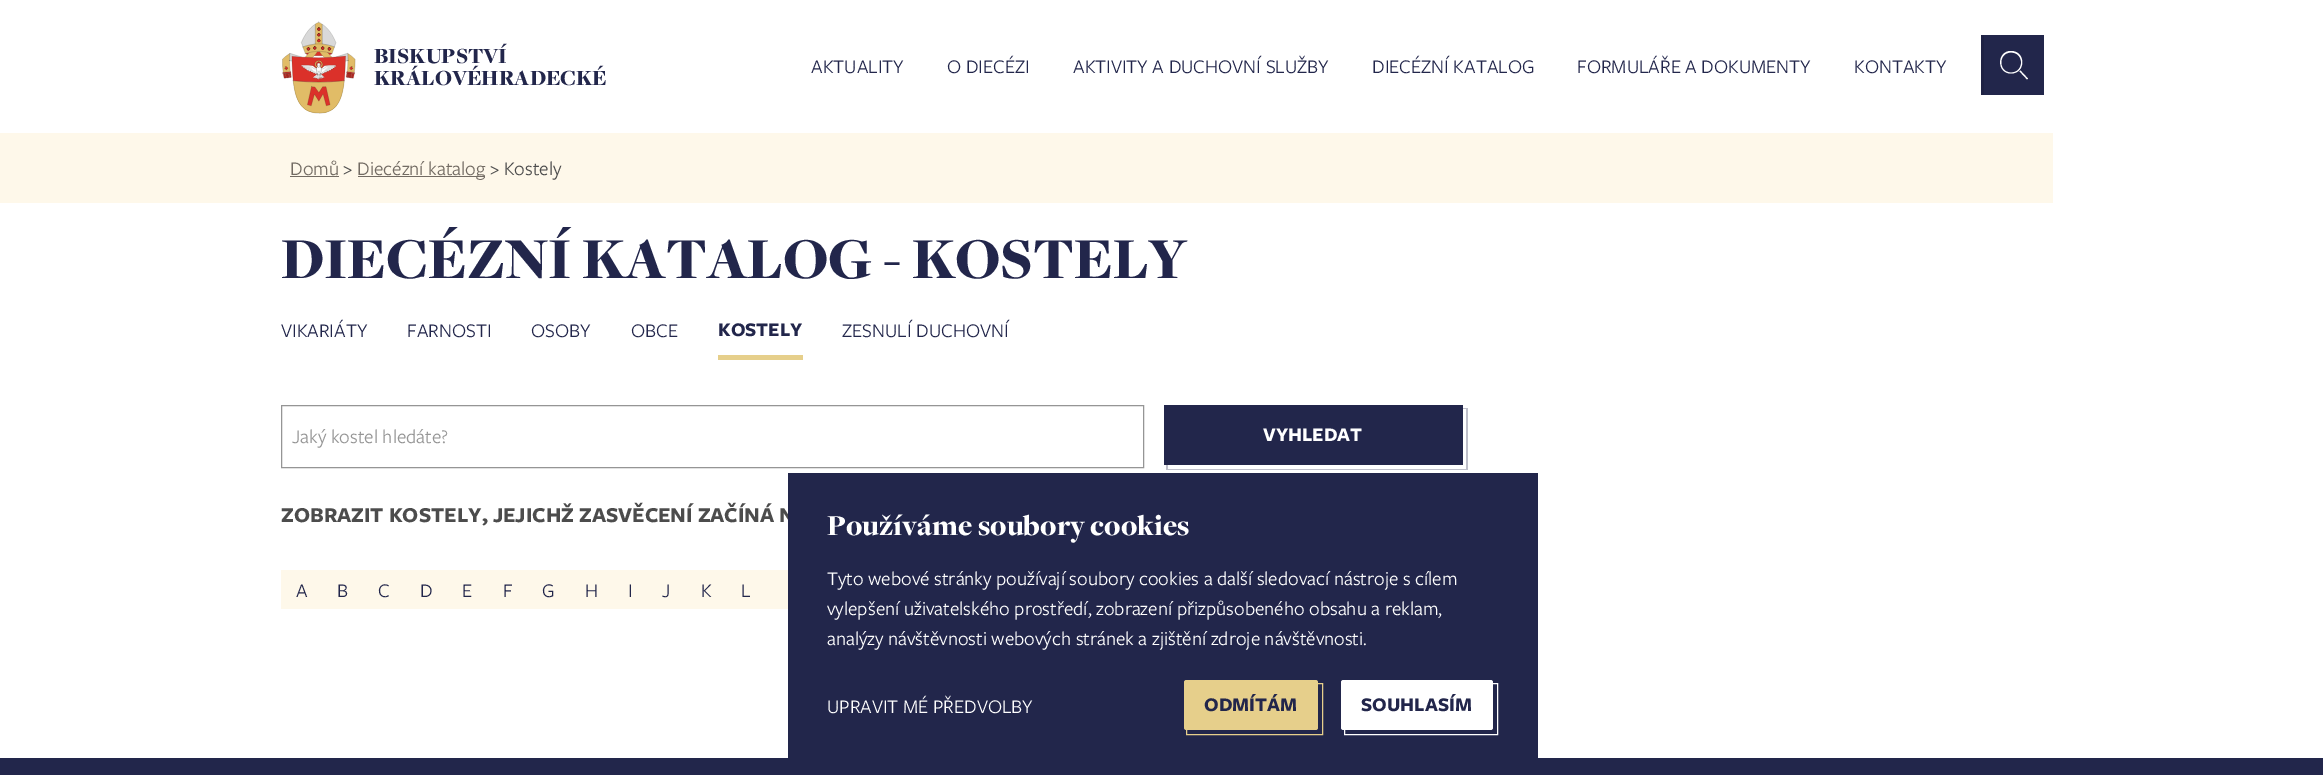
%!PS-Adobe-3.0
%%BoundingBox: 0 0 2323 775
%%LanguageLevel: 3
%%Pages: 1
%%EndComments
%%BeginProlog
/setink { 3 { 255 div 3 1 roll } repeat setrgbcolor } def
/usefont { [ exch dup neg 0 0 3 -1 roll 0 0 ] selectfont } def
/drawtext { setink usefont moveto show } def
/fillbox { setink rectfill } def
/rrect { 5 dict begin { /r /h /w /y /x } { exch def } forall
  x r add y moveto x w add y 2 copy h add r arct x w add y h add x 1 index r arct
  x y h add x y r arct x y 2 copy exch w add exch r arct closepath end } def
/drawimage { 5 dict begin { /h /w /y /x /name } { exch def } forall
  gsave x y translate w h scale
  w h 8 [w 0 0 h 0 0] name (r) file false 3 colorimage grestore end } def
%%EndProlog
%%BeginSetup
<< /PageSize [2323 775] >> setpagedevice
%%EndSetup
%%Page: 1 1
0 775 translate 1 -1 scale
4 setmiterlimit
0 0 2323 775 255 255 255 fillbox
(assets/img1.rgb) 282 21 74 93 drawimage
(BISKUPSTVÍ) 374 63 /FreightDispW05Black-Black 22.5 34 38 75 drawtext
(KRÁLOVÉHRADECKÉ) 374 85 /FreightDispW05Black-Black 22.5 34 38 75 drawtext
(AKTUALITY) 811 73 /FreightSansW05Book-Regular 20 34 38 75 drawtext
(O DIECÉZI) 947 73 /FreightSansW05Book-Regular 20 34 38 75 drawtext
(AKTIVITY A DUCHOVNÍ SLUŽBY) 1073 73 /FreightSansW05Book-Regular 20 34 38 75 drawtext
(DIECÉZNÍ KATALOG) 1372 73 /FreightSansW05Book-Regular 20 34 38 75 drawtext
(FORMULÁŘE A DOKUMENTY) 1577 73 /FreightSansW05Book-Regular 20 34 38 75 drawtext
(KONTAKTY) 1854 73 /FreightSansW05Book-Regular 20 34 38 75 drawtext
1981 35 3 60 31 34 68 fillbox
1984 35 60 60 34 38 75 fillbox
255 255 255 setink
2011 51 moveto 1996.5 51 1996.5 73.5 2011 73.5 curveto 2026 73.5 2026 51 2011 51 curveto 2011 52.5 moveto 2024.5 52.5 2024.5 72.5 2011 72.5 curveto 1998 72.5 1998 52.5 2011 52.5 curveto eofill
1.2 setlinewidth
2020 71 moveto 2027.5 79 lineto stroke
0 133 2053 70 254 248 234 fillbox
(Domů) 290 175 /FreightSansW05Book-Regular 20 114 107 99 drawtext
290 176 49 1 114 107 99 fillbox
(>) 343 175 /FreightSansW05Book-Regular 20 76 76 76 drawtext
358 176 127 1 114 107 99 fillbox
(Diecézní katalog) 357 175 /FreightSansW05Book-Regular 20 114 107 99 drawtext
(> Kostely) 490 175 /FreightSansW05Book-Regular 20 76 76 76 drawtext
(DIECÉZNÍ KATALOG - KOSTELY) 281 278 /FreightDispW05Black-Black 60 34 38 75 drawtext
(VIKARIÁTY) 281 337 /FreightSansW05Book-Regular 20 34 38 75 drawtext
(FARNOSTI) 407 337 /FreightSansW05Book-Regular 20 34 38 75 drawtext
(OSOBY) 531 337 /FreightSansW05Book-Regular 20 34 38 75 drawtext
(OBCE) 631 337 /FreightSansW05Book-Regular 20 34 38 75 drawtext
718 355 85 5 230 207 139 fillbox
(KOSTELY) 718 336 /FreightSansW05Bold-Bold 20 34 38 75 drawtext
(ZESNULÍ DUCHOVNÍ) 842 337 /FreightSansW05Book-Regular 20 34 38 75 drawtext
149 149 149 setink
1 setlinewidth
281.5 405.5 862 62 rectstroke
(Jaký kostel hledáte?) 292 443 /FreightSansW05Book-Regular 20 149 149 149 drawtext
190 191 202 setink
1166 465 moveto 1166 470 lineto 1468 470 lineto 1468 408 lineto 1462 408 lineto 1462 465 lineto closepath fill
255 255 255 setink
1168 465 moveto 1168 469 lineto 1466 469 lineto 1466 409 lineto 1462 409 lineto 1462 465 lineto closepath fill
1164 405 299 60 34 38 75 fillbox
(VYHLEDAT) 1263 441 /FreightSansW05Bold-Bold 20 255 255 255 drawtext
(ZOBRAZIT KOSTELY, JEJICHŽ ZASVĚCENÍ ZAČÍNÁ N) 281 522 /FreightSansW05Bold-Bold 22 76 76 76 drawtext
281 570 507 39 254 248 234 fillbox
(A) 296 597 /FreightSansW05Book-Regular 20 34 38 75 drawtext
(B) 337 597 /FreightSansW05Book-Regular 20 34 38 75 drawtext
(C) 378 597 /FreightSansW05Book-Regular 20 34 38 75 drawtext
(D) 420 597 /FreightSansW05Book-Regular 20 34 38 75 drawtext
(E) 462 597 /FreightSansW05Book-Regular 20 34 38 75 drawtext
(F) 503 597 /FreightSansW05Book-Regular 20 34 38 75 drawtext
(G) 542 597 /FreightSansW05Book-Regular 20 34 38 75 drawtext
(H) 585 597 /FreightSansW05Book-Regular 20 34 38 75 drawtext
(I) 628 597 /FreightSansW05Book-Regular 20 34 38 75 drawtext
(J) 662 597 /FreightSansW05Book-Regular 20 34 38 75 drawtext
(K) 701 597 /FreightSansW05Book-Regular 20 34 38 75 drawtext
(L) 741 597 /FreightSansW05Book-Regular 20 34 38 75 drawtext
0 758 2323 17 34 38 75 fillbox
788 473 750 285 34 38 75 fillbox
(Používáme soubory cookies) 827 535 /FreightDispW05Black-Black 30 255 255 255 drawtext
(Tyto webové stránky používají soubory cookies a další sledovací nástroje s cílem) 827 585 /FreightSansW05Book-Regular 20 255 255 255 drawtext
(vylepšení uživatelského prostředí, zobrazení přizpůsobeného obsahu a reklam,) 827 615 /FreightSansW05Book-Regular 20 255 255 255 drawtext
(analýzy návštěvnosti webových stránek a zjištění zdroje návštěvnosti.) 827 645 /FreightSansW05Book-Regular 20 255 255 255 drawtext
(UPRAVIT MÉ PŘEDVOLBY) 827 713 /FreightSansW05Book-Regular 20 255 255 255 drawtext
230 207 139 setink
1184 680 134 50 2.5 rrect fill
1186.5 683.5 136 51 rectstroke
(ODMÍTÁM) 1204 711 /FreightSansW05Bold-Bold 20 34 38 75 drawtext
255 255 255 setink
1341 680 152 50 2.5 rrect fill
1344.5 683.5 153 51 rectstroke
(SOUHLASÍM) 1361 711 /FreightSansW05Bold-Bold 20 34 38 75 drawtext
showpage
%%EOF
